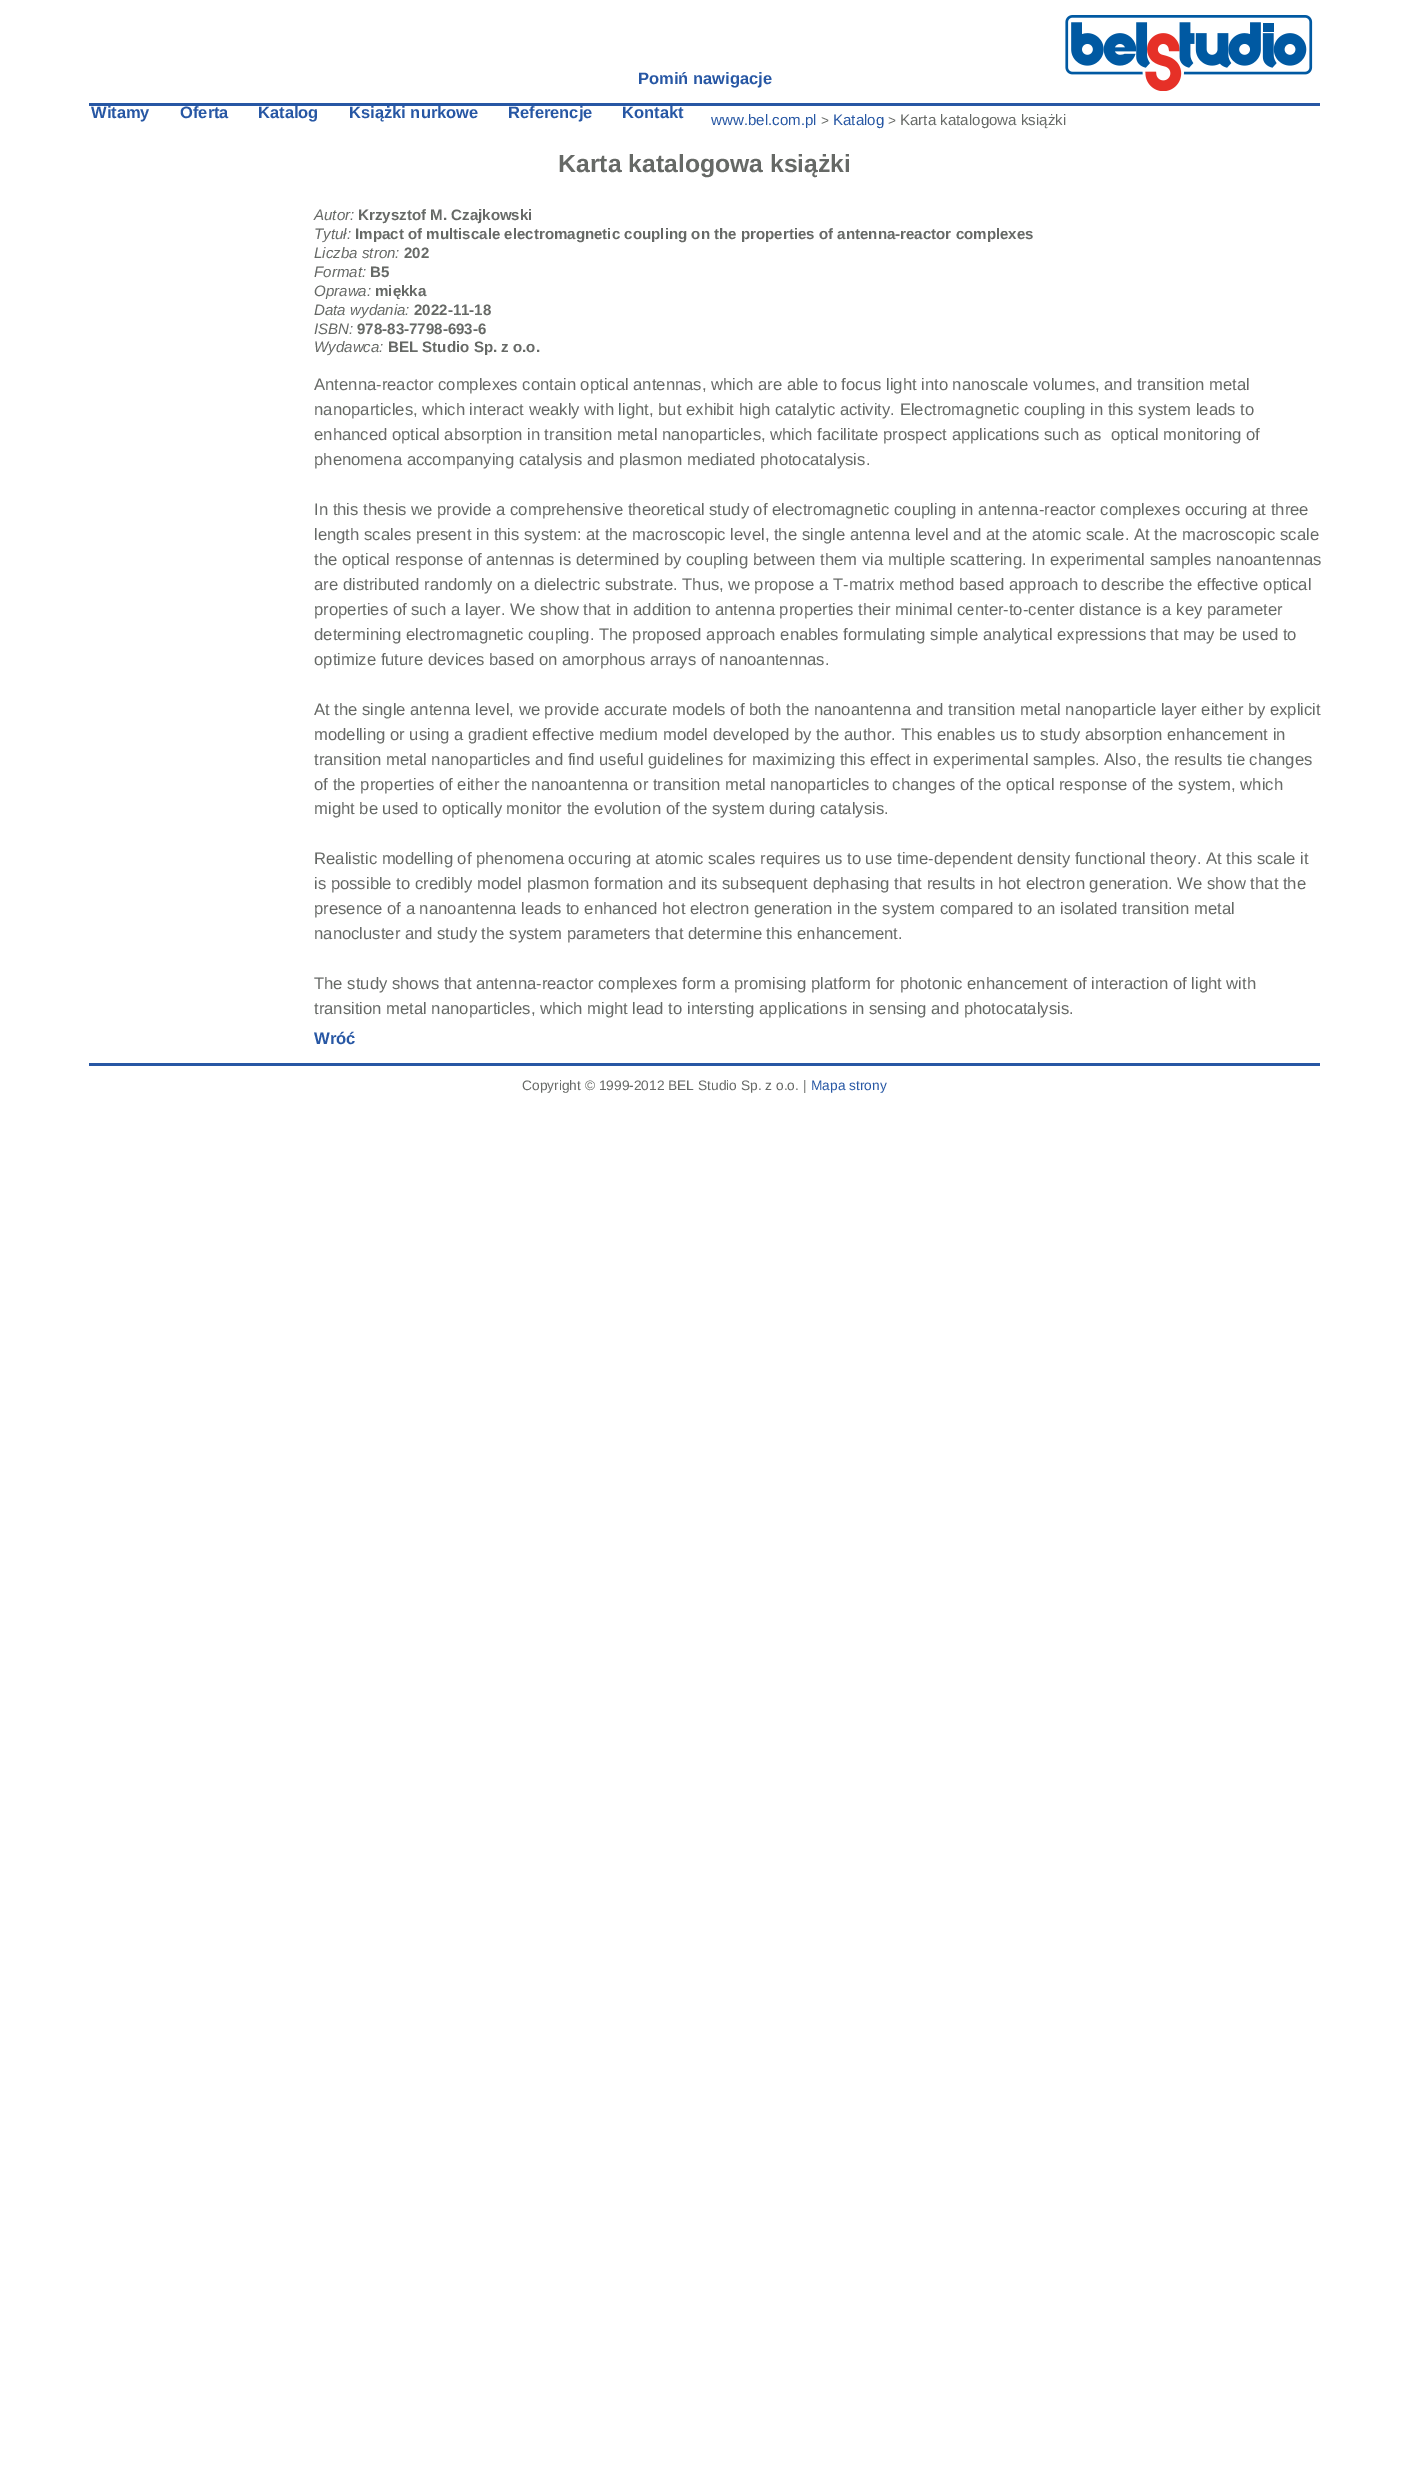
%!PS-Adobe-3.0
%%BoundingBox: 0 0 1408 2471
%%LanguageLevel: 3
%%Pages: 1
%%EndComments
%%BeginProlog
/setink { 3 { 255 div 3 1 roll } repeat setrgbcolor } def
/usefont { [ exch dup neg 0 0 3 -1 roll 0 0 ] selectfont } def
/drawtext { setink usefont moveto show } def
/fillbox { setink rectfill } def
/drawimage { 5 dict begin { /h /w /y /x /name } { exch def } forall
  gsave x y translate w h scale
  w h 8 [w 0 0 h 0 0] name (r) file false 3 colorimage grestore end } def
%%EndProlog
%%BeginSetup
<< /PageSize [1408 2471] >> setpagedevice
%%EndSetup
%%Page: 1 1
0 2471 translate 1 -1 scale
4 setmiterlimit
0 0 1408 2471 255 255 255 fillbox
(assets/img1.rgb) 1065 15 248 76 drawimage
89 103 1231 3 39 87 164 fillbox
(Pomiń nawigacje) 638 84 /LiberationSans-Bold 16.5 39 87 164 drawtext
(Witamy) 91 118 /LiberationSans-Bold 16.5 39 87 164 drawtext
(Oferta) 180 118 /LiberationSans-Bold 16.5 39 87 164 drawtext
(Katalog) 258 118 /LiberationSans-Bold 16.5 39 87 164 drawtext
(Książki nurkowe) 349 118 /LiberationSans-Bold 16.5 39 87 164 drawtext
(Referencje) 508 118 /LiberationSans-Bold 16.5 39 87 164 drawtext
(Kontakt) 622 118 /LiberationSans-Bold 16.5 39 87 164 drawtext
(www.bel.com.pl) 711 125 /LiberationSans-Regular 15.1 39 87 164 drawtext
(>) 821 125 /LiberationSans-Regular 13.75 102 105 102 drawtext
(Katalog) 833 125 /LiberationSans-Regular 15.1 39 87 164 drawtext
(>) 888 125 /LiberationSans-Regular 13.75 102 105 102 drawtext
(Karta katalogowa książki) 900 125 /LiberationSans-Regular 15.1 102 105 102 drawtext
(Karta katalogowa książki) 558 172 /LiberationSans-Bold 24.75 102 105 102 drawtext
(Autor:) 314 220 /LiberationSans-Italic 15.1 102 105 102 drawtext
(Krzysztof M. Czajkowski) 358 220 /LiberationSans-Bold 15.1 102 105 102 drawtext
(Tytuł:) 314 239 /LiberationSans-Italic 15.1 102 105 102 drawtext
(Impact of multiscale electromagnetic coupling on the properties of antenna-reactor complexes) 355 239 /LiberationSans-Bold 15.1 102 105 102 drawtext
(Liczba stron:) 314 258 /LiberationSans-Italic 15.1 102 105 102 drawtext
(202) 404 258 /LiberationSans-Bold 15.1 102 105 102 drawtext
(Format:) 314 277 /LiberationSans-Italic 15.1 102 105 102 drawtext
(B5) 370 277 /LiberationSans-Bold 15.1 102 105 102 drawtext
(Oprawa:) 314 296 /LiberationSans-Italic 15.1 102 105 102 drawtext
(miękka) 375 296 /LiberationSans-Bold 15.1 102 105 102 drawtext
(Data wydania:) 314 315 /LiberationSans-Italic 15.1 102 105 102 drawtext
(2022-11-18) 414 315 /LiberationSans-Bold 15.1 102 105 102 drawtext
(ISBN:) 314 334 /LiberationSans-Italic 15.1 102 105 102 drawtext
(978-83-7798-693-6) 357 334 /LiberationSans-Bold 15.1 102 105 102 drawtext
(Wydawca:) 314 352 /LiberationSans-Italic 15.1 102 105 102 drawtext
(BEL Studio Sp. z o.o.) 388 352 /LiberationSans-Bold 15.1 102 105 102 drawtext
(Antenna-reactor complexes contain optical antennas, which are able to focus light into nanoscale volumes, and transition metal) 314 390 /LiberationSans-Regular 16.65 102 105 102 drawtext
(nanoparticles, which interact weakly with light, but exhibit high catalytic activity. Electromagnetic coupling in this system leads to) 314 415 /LiberationSans-Regular 16.65 102 105 102 drawtext
(enhanced optical absorption in transition metal nanoparticles, which facilitate prospect applications such as  optical monitoring of) 314 440 /LiberationSans-Regular 16.65 102 105 102 drawtext
(phenomena accompanying catalysis and plasmon mediated photocatalysis.) 314 465 /LiberationSans-Regular 16.65 102 105 102 drawtext
(In this thesis we provide a comprehensive theoretical study of electromagnetic coupling in antenna-reactor complexes occuring at three) 314 515 /LiberationSans-Regular 16.65 102 105 102 drawtext
(length scales present in this system: at the macroscopic level, the single antenna level and at the atomic scale. At the macroscopic scale) 314 540 /LiberationSans-Regular 16.65 102 105 102 drawtext
(the optical response of antennas is determined by coupling between them via multiple scattering. In experimental samples nanoantennas) 314 565 /LiberationSans-Regular 16.65 102 105 102 drawtext
(are distributed randomly on a dielectric substrate. Thus, we propose a T-matrix method based approach to describe the effective optical) 314 590 /LiberationSans-Regular 16.65 102 105 102 drawtext
(properties of such a layer. We show that in addition to antenna properties their minimal center-to-center distance is a key parameter) 314 615 /LiberationSans-Regular 16.65 102 105 102 drawtext
(determining electromagnetic coupling. The proposed approach enables formulating simple analytical expressions that may be used to) 314 640 /LiberationSans-Regular 16.65 102 105 102 drawtext
(optimize future devices based on amorphous arrays of nanoantennas.) 314 665 /LiberationSans-Regular 16.65 102 105 102 drawtext
(At the single antenna level, we provide accurate models of both the nanoantenna and transition metal nanoparticle layer either by explicit) 314 715 /LiberationSans-Regular 16.65 102 105 102 drawtext
(modelling or using a gradient effective medium model developed by the author. This enables us to study absorption enhancement in) 314 740 /LiberationSans-Regular 16.65 102 105 102 drawtext
(transition metal nanoparticles and find useful guidelines for maximizing this effect in experimental samples. Also, the results tie changes) 314 765 /LiberationSans-Regular 16.65 102 105 102 drawtext
(of the properties of either the nanoantenna or transition metal nanoparticles to changes of the optical response of the system, which) 314 790 /LiberationSans-Regular 16.65 102 105 102 drawtext
(might be used to optically monitor the evolution of the system during catalysis.) 314 814 /LiberationSans-Regular 16.65 102 105 102 drawtext
(Realistic modelling of phenomena occuring at atomic scales requires us to use time-dependent density functional theory. At this scale it) 314 864 /LiberationSans-Regular 16.65 102 105 102 drawtext
(is possible to credibly model plasmon formation and its subsequent dephasing that results in hot electron generation. We show that the) 314 889 /LiberationSans-Regular 16.65 102 105 102 drawtext
(presence of a nanoantenna leads to enhanced hot electron generation in the system compared to an isolated transition metal) 314 914 /LiberationSans-Regular 16.65 102 105 102 drawtext
(nanocluster and study the system parameters that determine this enhancement.) 314 939 /LiberationSans-Regular 16.65 102 105 102 drawtext
(The study shows that antenna-reactor complexes form a promising platform for photonic enhancement of interaction of light with) 314 989 /LiberationSans-Regular 16.65 102 105 102 drawtext
(transition metal nanoparticles, which might lead to intersting applications in sensing and photocatalysis.) 314 1014 /LiberationSans-Regular 16.65 102 105 102 drawtext
(Wróć) 314 1044 /LiberationSans-Bold 16.65 39 87 164 drawtext
89 1063 1231 3 39 87 164 fillbox
(Copyright © 1999-2012 BEL Studio Sp. z o.o. |) 522 1090 /LiberationSans-Regular 13.75 102 105 102 drawtext
(Mapa strony) 811 1090 /LiberationSans-Regular 13.75 39 87 164 drawtext
showpage
%%EOF
